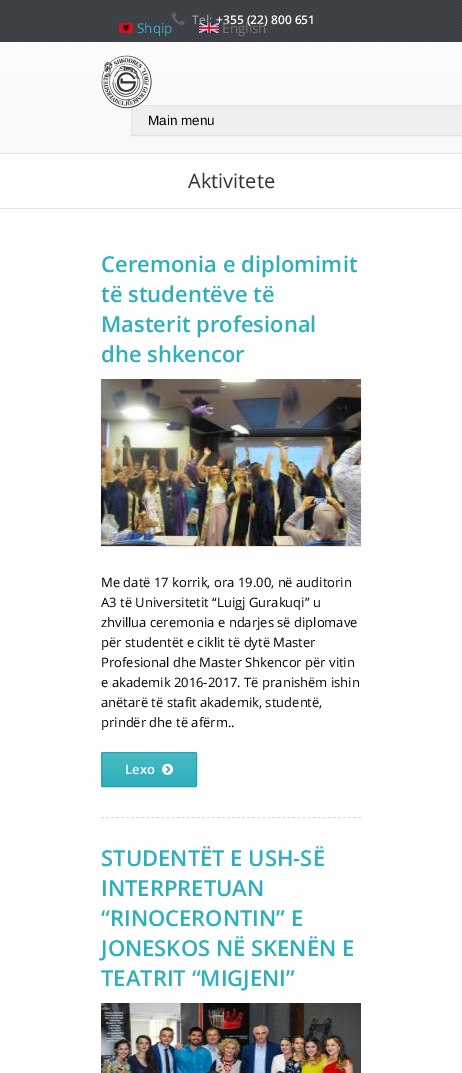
%!PS-Adobe-3.0
%%BoundingBox: 0 0 462 1073
%%LanguageLevel: 3
%%Pages: 1
%%EndComments
%%BeginProlog
/setink { 3 { 255 div 3 1 roll } repeat setrgbcolor } def
/usefont { [ exch dup neg 0 0 3 -1 roll 0 0 ] selectfont } def
/drawtext { setink usefont moveto show } def
/fillbox { setink rectfill } def
/setalpha { dup .setfillconstantalpha .setstrokeconstantalpha } def
/rrect { 5 dict begin { /r /h /w /y /x } { exch def } forall
  x r add y moveto x w add y 2 copy h add r arct x w add y h add x 1 index r arct
  x y h add x y r arct x y 2 copy exch w add exch r arct closepath end } def
/softshadow { 12 dict begin { /a /b /q /h /w /y /x } { exch def } forall gsave /was 0 def
  9 -2 -9 { dup b mul 4 div /e exch def 1 sub .425 mul 2.718 exch exp 1 add a .99 .min exch div /now exch def
    1 1 now sub 1 was sub div sub setalpha /was now def
    w h .min e 2 mul add 0 gt { x e sub y e sub w e 2 mul add h e 2 mul add
      q e add b .6 mul add w h .min 2 div e add .min 0 .max rrect fill } if } for grestore end } def
/drawimage { 5 dict begin { /h /w /y /x /name } { exch def } forall
  gsave x y translate w h scale
  w h 8 [w 0 0 h 0 0] name (r) file false 3 colorimage grestore end } def
%%EndProlog
%%BeginSetup
<< /PageSize [462 1073] /PageUsesTransparency true >> setpagedevice
%%EndSetup
%%Page: 1 1
0 .pushpdf14devicefilter
0 1073 translate 1 -1 scale
4 setmiterlimit
0 0 462 1073 255 255 255 fillbox
(assets/img1.rgb) 0 0 462 42 drawimage
(assets/img2.rgb) 172 12 13 13 drawimage
(Tel:) 192 24 /OpenSans-SemiBold 12 155 155 155 drawtext
(+355 \(22\) 800 651) 216 24 /OpenSans-SemiBold 12 255 255 255 drawtext
(assets/img3.rgb) 119 23 14 10 drawimage
(Shqip) 137 33 /OpenSans-Regular 13.5 60 170 200 drawtext
(assets/img4.rgb) 199 23 20 10 drawimage
(English) 222 33 /OpenSans-Regular 13.5 119 119 119 drawtext
gsave 0 42 moveto 462 42 lineto 462 153 lineto 0 153 lineto closepath clip newpath
<< /ShadingType 2 /ColorSpace /DeviceRGB /Coords [231 42 231 153] /Extend [true true] /Function << /FunctionType 3 /Domain [0 1] /Functions [<< /FunctionType 2 /Domain [0 1] /C0 [0.988 0.988 0.988] /C1 [0.988 0.988 0.988] /N 1 >> << /FunctionType 2 /Domain [0 1] /C0 [0.988 0.988 0.988] /C1 [0.976 0.976 0.976] /N 1 >>] /Bounds [0.02] /Encode [0 1 0 1] >> >> shfill grestore
239 239 239 setink
131.5 105.5 moveto 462.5 105.5 lineto 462.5 135.5 lineto 131.5 135.5 lineto closepath gsave fill grestore
226 226 226 setink
stroke
(assets/img5.rgb) 101 55 51 54 drawimage
(Main menu) 148 125 /LiberationSans-Regular 13.5 0 0 0 drawtext
0 153 462 1 228 228 228 fillbox
0 208 462 1 228 228 228 fillbox
(Aktivitete) 188 188 /OpenSans-Regular 20 49 53 56 drawtext
222 225 226 setink
[3 2.04] 0 setdash
101 817.5 moveto 361 817.5 lineto stroke
(Ceremonia e diplomimit) 101 272 /OpenSans-SemiBold 22 46 175 187 drawtext
(të studentëve të) 101 302 /OpenSans-SemiBold 22 46 175 187 drawtext
(Masterit profesional) 101 332 /OpenSans-SemiBold 22 46 175 187 drawtext
(dhe shkencor) 101 362 /OpenSans-SemiBold 22 46 175 187 drawtext
0 0 0 setink
101 380 260 167 0 0.5 0.1 softshadow
(assets/img6.rgb) 101 379 260 167 drawimage
(Me datë 17 korrik, ora 19.00, në auditorin) 101 587 /OpenSans-Regular 13 0 0 0 drawtext
(A3 të Universitetit “Luigj Gurakuqi” u) 101 607 /OpenSans-Regular 13 0 0 0 drawtext
(zhvillua ceremonia e ndarjes së diplomave) 101 627 /OpenSans-Regular 13 0 0 0 drawtext
(për studentët e ciklit të dytë Master) 101 647 /OpenSans-Regular 13 0 0 0 drawtext
(Profesional dhe Master Shkencor për vitin) 101 667 /OpenSans-Regular 13 0 0 0 drawtext
(e akademik 2016-2017. Të pranishëm ishin) 101 687 /OpenSans-Regular 13 0 0 0 drawtext
(anëtarë të stafit akademik, studentë,) 101 707 /OpenSans-Regular 13 0 0 0 drawtext
(prindër dhe të afërm..) 101 727 /OpenSans-Regular 13 0 0 0 drawtext
101 753 96 35 2 1 0.05 softshadow
46 175 187 setink
101 752 96 35 2 rrect fill
(assets/img7.rgb) 101 753 96 25 drawimage
38 164 177 setink
[] 0 setdash
101.5 752.5 95 34 1.5 rrect stroke
(Lexo) 125 774 /OpenSans-SemiBold 13 255 255 255 drawtext
(assets/img8.rgb) 162 763 12 12 drawimage
(STUDENTËT E USH-SË) 101 866 /OpenSans-SemiBold 22 46 175 187 drawtext
(INTERPRETUAN) 101 896 /OpenSans-SemiBold 22 46 175 187 drawtext
(“RINOCERONTIN” E) 101 926 /OpenSans-SemiBold 22 46 175 187 drawtext
(JONESKOS NË SKENËN E) 101 956 /OpenSans-SemiBold 22 46 175 187 drawtext
(TEATRIT “MIGJENI”) 101 986 /OpenSans-SemiBold 22 46 175 187 drawtext
(assets/img9.rgb) 101 1003 260 70 drawimage
.poppdf14devicefilter showpage
%%EOF
